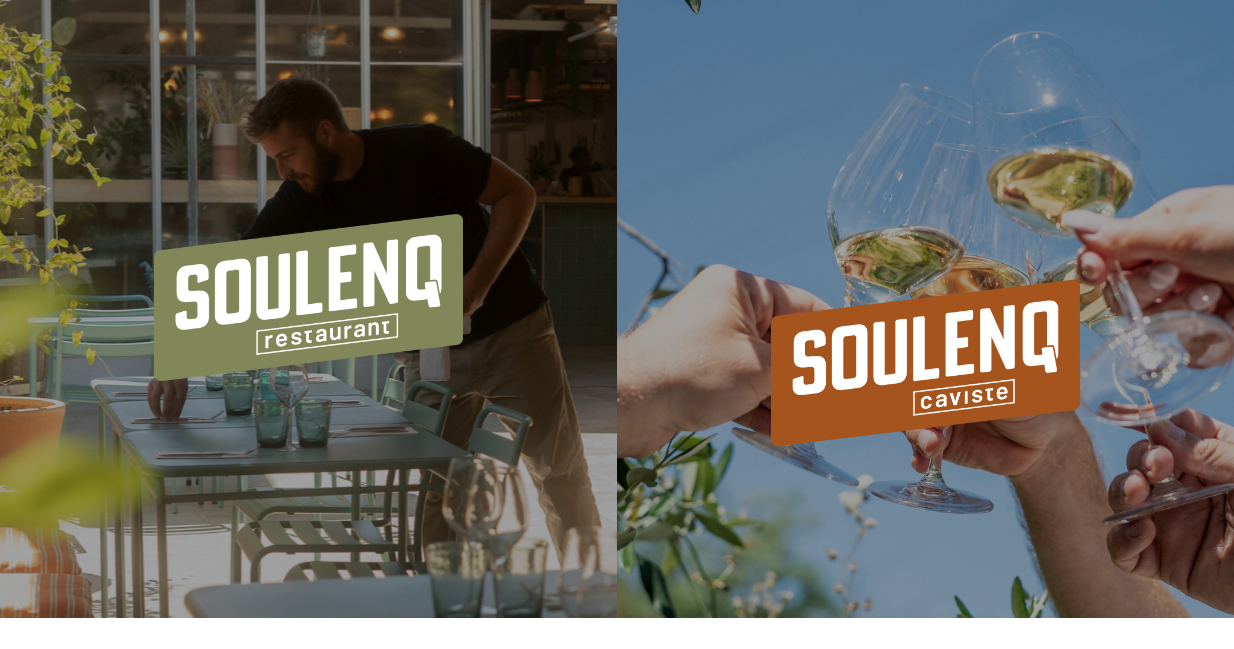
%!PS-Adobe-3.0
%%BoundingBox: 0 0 1234 649
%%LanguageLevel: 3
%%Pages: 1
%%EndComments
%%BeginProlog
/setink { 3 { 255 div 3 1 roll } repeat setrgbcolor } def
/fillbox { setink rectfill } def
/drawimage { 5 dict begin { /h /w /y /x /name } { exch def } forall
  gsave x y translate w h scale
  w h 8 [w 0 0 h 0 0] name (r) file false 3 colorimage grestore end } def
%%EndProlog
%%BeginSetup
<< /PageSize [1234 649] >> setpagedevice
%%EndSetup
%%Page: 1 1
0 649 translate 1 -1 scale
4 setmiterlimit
0 0 1234 649 255 255 255 fillbox
(assets/img1.rgb) 0 0 617 618 drawimage
(assets/img2.rgb) 154 214 309 167 drawimage
(assets/img3.rgb) 617 0 617 618 drawimage
(assets/img4.rgb) 771 279 309 168 drawimage
showpage
%%EOF
